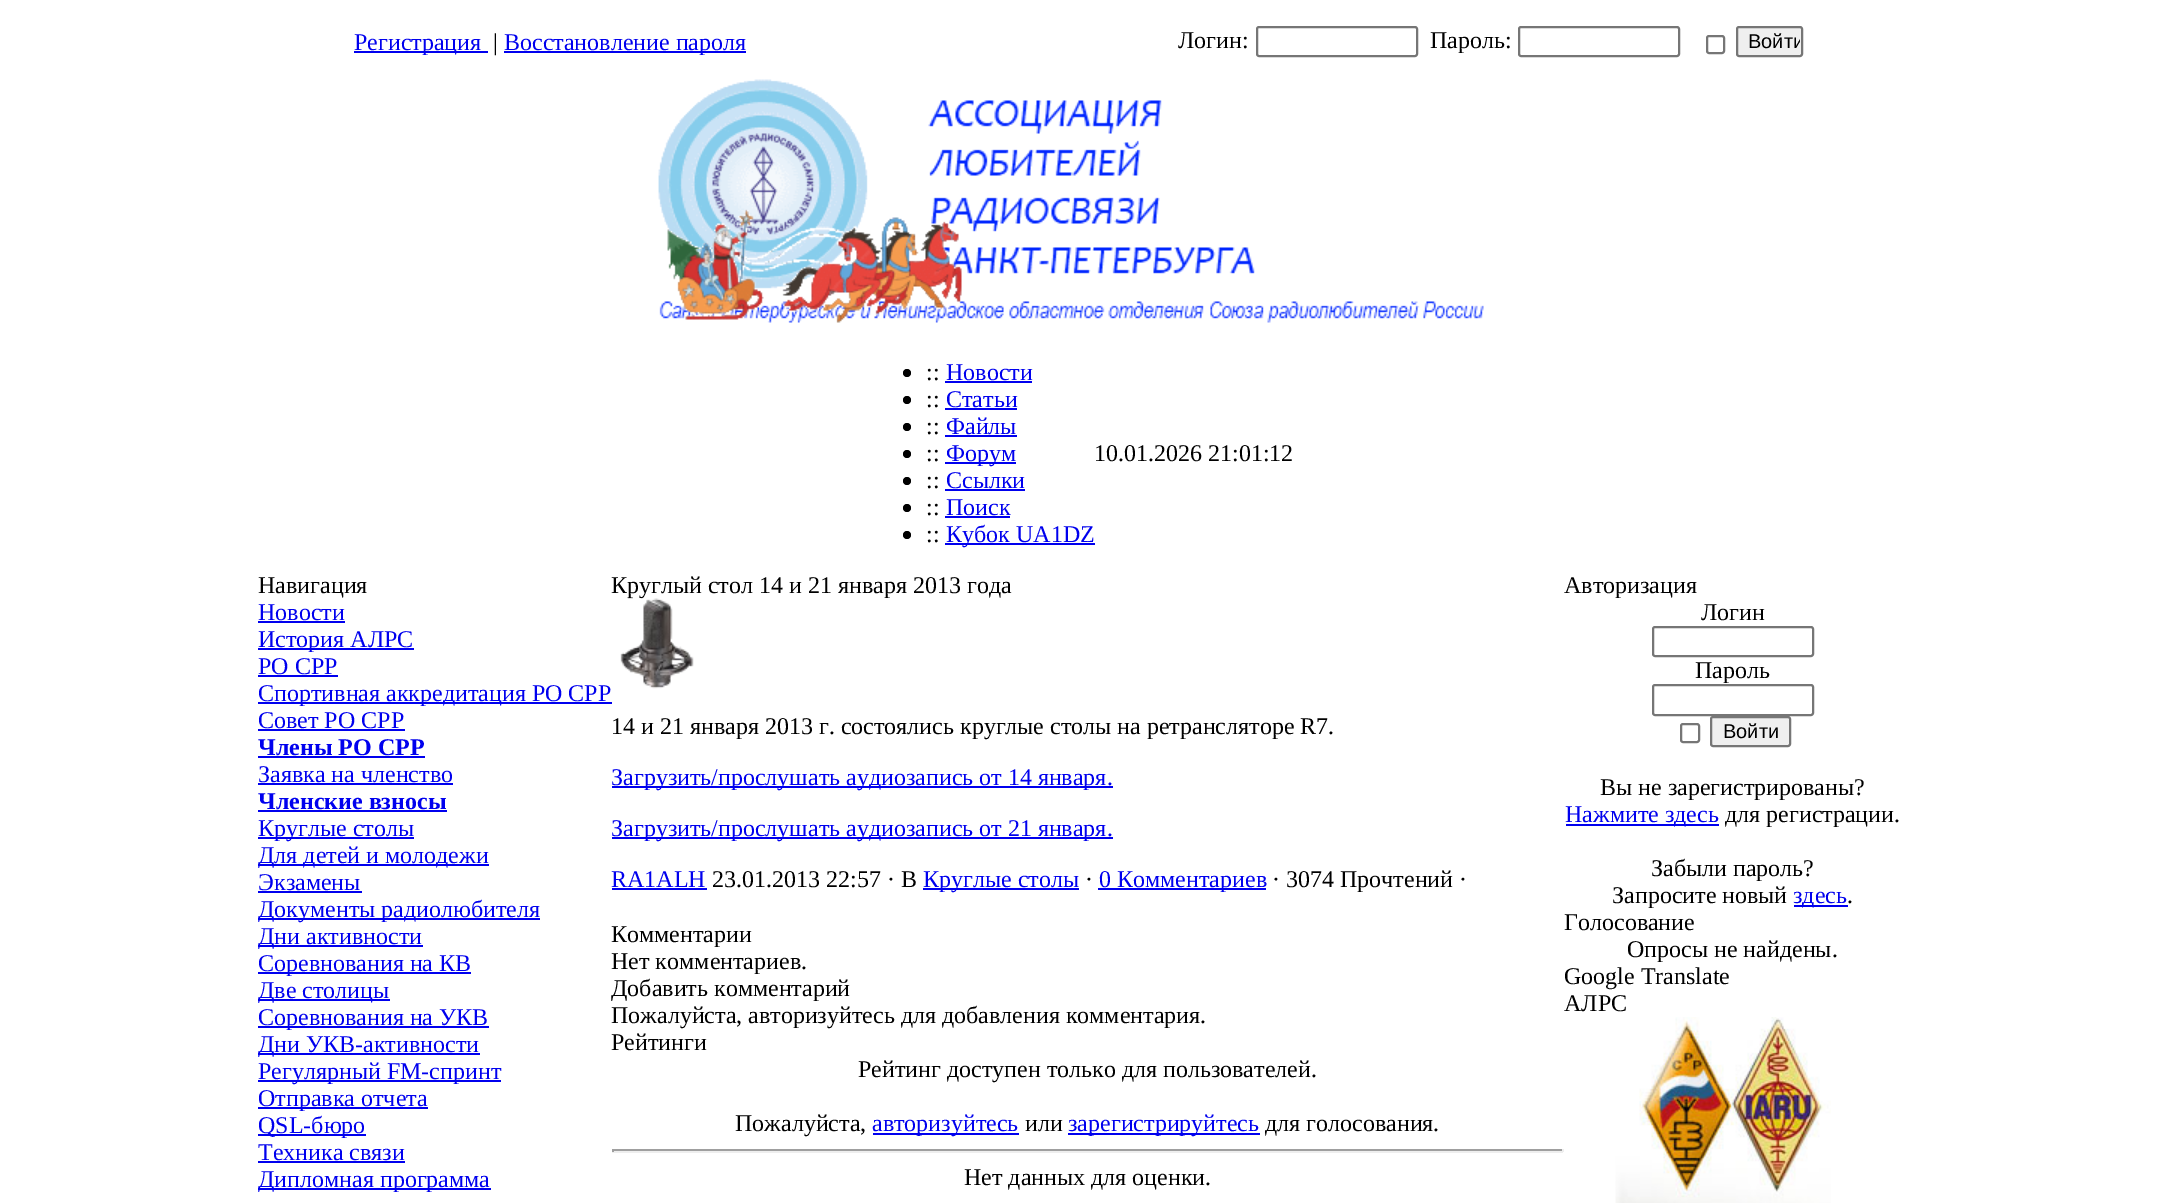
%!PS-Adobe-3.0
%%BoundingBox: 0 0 2160 1203
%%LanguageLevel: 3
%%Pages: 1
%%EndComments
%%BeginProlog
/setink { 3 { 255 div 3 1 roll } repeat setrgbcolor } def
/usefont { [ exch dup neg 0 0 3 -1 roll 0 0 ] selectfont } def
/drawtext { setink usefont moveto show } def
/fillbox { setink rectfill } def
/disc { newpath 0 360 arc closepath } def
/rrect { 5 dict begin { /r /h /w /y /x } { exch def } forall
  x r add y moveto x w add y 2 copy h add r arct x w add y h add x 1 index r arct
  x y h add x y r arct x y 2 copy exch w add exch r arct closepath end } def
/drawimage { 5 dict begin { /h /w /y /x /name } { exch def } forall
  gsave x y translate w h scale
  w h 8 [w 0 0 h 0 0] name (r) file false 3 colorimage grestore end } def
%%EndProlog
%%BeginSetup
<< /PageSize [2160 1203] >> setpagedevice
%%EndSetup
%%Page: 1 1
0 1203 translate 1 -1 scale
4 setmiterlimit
0 0 2160 1203 255 255 255 fillbox
354 51 134 2 0 0 238 fillbox
(Регистрация) 354 50 /LiberationSerif-Regular 24 0 0 238 drawtext
(|) 493 50 /LiberationSerif-Regular 24 0 0 0 drawtext
504 51 242 2 0 0 238 fillbox
(Восстановление пароля) 504 50 /LiberationSerif-Regular 24 0 0 238 drawtext
(Логин:) 1178 48 /LiberationSerif-Regular 24 0 0 0 drawtext
118 118 118 setink
2 setlinewidth
1257 27 160 29 2 rrect stroke
(Пароль:) 1430 48 /LiberationSerif-Regular 24 0 0 0 drawtext
118 118 118 setink
1519 27 160 29 2 rrect stroke
1707 36 17 17 2 rrect stroke
239 239 239 setink
1737 27 65 29 2 rrect gsave fill grestore
118 118 118 setink
stroke
gsave
1739 29 61 25 rectclip
(Войти) 1748 48 /LiberationSans-Regular 20 0 0 0 drawtext
grestore
(assets/img1.rgb) 658 79 826 244 drawimage
0 0 0 setink
907 373 4 disc fill
(::) 926 380 /LiberationSerif-Regular 24 0 0 0 drawtext
(Новости) 946 380 /LiberationSerif-Regular 24 0 0 238 drawtext
945 381 87 2 0 0 238 fillbox
0 0 0 setink
907 400 4 disc fill
(::) 926 407 /LiberationSerif-Regular 24 0 0 0 drawtext
(Статьи) 946 407 /LiberationSerif-Regular 24 0 0 238 drawtext
945 408 72 2 0 0 238 fillbox
0 0 0 setink
907 427 4 disc fill
(::) 926 434 /LiberationSerif-Regular 24 0 0 0 drawtext
(Файлы) 946 434 /LiberationSerif-Regular 24 0 0 238 drawtext
945 435 72 2 0 0 238 fillbox
0 0 0 setink
907 454 4 disc fill
(::) 926 461 /LiberationSerif-Regular 24 0 0 0 drawtext
945 462 71 2 0 0 238 fillbox
(Форум) 946 461 /LiberationSerif-Regular 24 0 0 238 drawtext
0 0 0 setink
907 481 4 disc fill
(::) 926 488 /LiberationSerif-Regular 24 0 0 0 drawtext
(Ссылки) 946 488 /LiberationSerif-Regular 24 0 0 238 drawtext
945 489 80 2 0 0 238 fillbox
0 0 0 setink
907 508 4 disc fill
(::) 926 515 /LiberationSerif-Regular 24 0 0 0 drawtext
(Поиск) 946 515 /LiberationSerif-Regular 24 0 0 238 drawtext
945 516 65 2 0 0 238 fillbox
0 0 0 setink
907 535 4 disc fill
(::) 926 542 /LiberationSerif-Regular 24 0 0 0 drawtext
945 543 150 2 0 0 238 fillbox
(Кубок UA1DZ) 946 542 /LiberationSerif-Regular 24 0 0 238 drawtext
(10.01.2026 21:01:12) 1094 461 /LiberationSerif-Regular 24 0 0 0 drawtext
(Навигация) 258 593 /LiberationSerif-Regular 24 0 0 0 drawtext
(Новости) 258 620 /LiberationSerif-Regular 24 0 0 238 drawtext
258 621 87 2 0 0 238 fillbox
258 648 156 2 0 0 238 fillbox
(История АЛРС) 258 647 /LiberationSerif-Regular 24 0 0 238 drawtext
(РО СРР) 258 674 /LiberationSerif-Regular 24 0 0 238 drawtext
258 675 80 2 0 0 238 fillbox
258 702 354 2 0 0 238 fillbox
(Спортивная аккредитация РО СРР) 258 701 /LiberationSerif-Regular 24 0 0 238 drawtext
(Совет РО СРР) 258 728 /LiberationSerif-Regular 24 0 0 238 drawtext
258 729 147 2 0 0 238 fillbox
(Члены РО СРР) 258 755 /LiberationSerif-Bold 24 0 0 238 drawtext
258 756 167 2 0 0 238 fillbox
(Заявка на членство) 258 782 /LiberationSerif-Regular 24 0 0 238 drawtext
258 783 195 2 0 0 238 fillbox
(Членские взносы) 258 809 /LiberationSerif-Bold 24 0 0 238 drawtext
258 810 189 2 0 0 238 fillbox
258 837 156 2 0 0 238 fillbox
(Круглые столы) 258 836 /LiberationSerif-Regular 24 0 0 238 drawtext
258 864 231 2 0 0 238 fillbox
(Для детей и молодежи) 258 863 /LiberationSerif-Regular 24 0 0 238 drawtext
(Экзамены) 258 890 /LiberationSerif-Regular 24 0 0 238 drawtext
258 891 104 2 0 0 238 fillbox
258 918 282 2 0 0 238 fillbox
(Документы радиолюбителя) 258 917 /LiberationSerif-Regular 24 0 0 238 drawtext
258 945 165 2 0 0 238 fillbox
(Дни активности) 258 944 /LiberationSerif-Regular 24 0 0 238 drawtext
258 972 213 2 0 0 238 fillbox
(Соревнования на КВ) 258 971 /LiberationSerif-Regular 24 0 0 238 drawtext
258 999 132 2 0 0 238 fillbox
(Две столицы) 258 998 /LiberationSerif-Regular 24 0 0 238 drawtext
258 1026 231 2 0 0 238 fillbox
(Соревнования на УКВ) 258 1025 /LiberationSerif-Regular 24 0 0 238 drawtext
258 1053 222 2 0 0 238 fillbox
(Дни УКВ-активности) 258 1052 /LiberationSerif-Regular 24 0 0 238 drawtext
258 1080 243 2 0 0 238 fillbox
(Регулярный FM-спринт) 258 1079 /LiberationSerif-Regular 24 0 0 238 drawtext
258 1107 170 2 0 0 238 fillbox
(Отправка отчета) 258 1106 /LiberationSerif-Regular 24 0 0 238 drawtext
258 1134 108 2 0 0 238 fillbox
(QSL-бюро) 258 1133 /LiberationSerif-Regular 24 0 0 238 drawtext
(Техника связи) 258 1160 /LiberationSerif-Regular 24 0 0 238 drawtext
258 1161 147 2 0 0 238 fillbox
258 1188 233 2 0 0 238 fillbox
(Дипломная программа) 258 1187 /LiberationSerif-Regular 24 0 0 238 drawtext
(Круглый стол 14 и 21 января 2013 года) 611 593 /LiberationSerif-Regular 24 0 0 0 drawtext
(assets/img2.rgb) 620 598 74 91 drawimage
(14 и 21 января 2013 г. состоялись круглые столы на ретрансляторе R7.) 611 734 /LiberationSerif-Regular 24 0 0 0 drawtext
612 786 501 2 0 0 238 fillbox
(Загрузить/прослушать аудиозапись от 14 января.) 611 785 /LiberationSerif-Regular 24 0 0 238 drawtext
612 837 501 2 0 0 238 fillbox
(Загрузить/прослушать аудиозапись от 21 января.) 611 836 /LiberationSerif-Regular 24 0 0 238 drawtext
(RA1ALH) 611 887 /LiberationSerif-Regular 24 0 0 238 drawtext
612 888 95 2 0 0 238 fillbox
(23.01.2013 22:57 · В) 712 887 /LiberationSerif-Regular 24 0 0 0 drawtext
923 888 156 2 0 0 238 fillbox
(Круглые столы) 923 887 /LiberationSerif-Regular 24 0 0 238 drawtext
(·) 1085 887 /LiberationSerif-Regular 24 0 0 0 drawtext
1098 888 168 2 0 0 238 fillbox
(0 Комментариев) 1099 887 /LiberationSerif-Regular 24 0 0 238 drawtext
(· 3074 Прочтений ·) 1272 887 /LiberationSerif-Regular 24 0 0 0 drawtext
(Комментарии) 611 942 /LiberationSerif-Regular 24 0 0 0 drawtext
(Нет комментариев.) 611 969 /LiberationSerif-Regular 24 0 0 0 drawtext
(Добавить комментарий) 611 996 /LiberationSerif-Regular 24 0 0 0 drawtext
(Пожалуйста, авторизуйтесь для добавления комментария.) 611 1023 /LiberationSerif-Regular 24 0 0 0 drawtext
(Рейтинги) 611 1050 /LiberationSerif-Regular 24 0 0 0 drawtext
(Рейтинг доступен только для пользователей.) 858 1077 /LiberationSerif-Regular 24 0 0 0 drawtext
(Пожалуйста,) 735 1131 /LiberationSerif-Regular 24 0 0 0 drawtext
873 1133 146 2 0 0 238 fillbox
(авторизуйтесь) 872 1131 /LiberationSerif-Regular 24 0 0 238 drawtext
(или) 1025 1131 /LiberationSerif-Regular 24 0 0 0 drawtext
1068 1133 192 2 0 0 238 fillbox
(зарегистрируйтесь) 1068 1131 /LiberationSerif-Regular 24 0 0 238 drawtext
(для голосования.) 1265 1131 /LiberationSerif-Regular 24 0 0 0 drawtext
612 1149 951 2 159 159 159 fillbox
1562 1149 2 3 238 238 238 fillbox
612 1151 951 2 238 238 238 fillbox
612 1149 2 3 159 159 159 fillbox
(Нет данных для оценки.) 964 1185 /LiberationSerif-Regular 24 0 0 0 drawtext
(Авторизация) 1564 593 /LiberationSerif-Regular 24 0 0 0 drawtext
(Логин) 1701 620 /LiberationSerif-Regular 24 0 0 0 drawtext
118 118 118 setink
1653 627 160 29 2 rrect stroke
(Пароль) 1695 678 /LiberationSerif-Regular 24 0 0 0 drawtext
118 118 118 setink
1653 685 160 30 2 rrect stroke
1681 724 18 18 2 rrect stroke
239 239 239 setink
1711 717 79 29 2 rrect gsave fill grestore
118 118 118 setink
stroke
(Войти) 1723 738 /LiberationSans-Regular 20 0 0 0 drawtext
(Вы не зарегистрированы?) 1600 795 /LiberationSerif-Regular 24 0 0 0 drawtext
1566 824 153 2 0 0 238 fillbox
(Нажмите здесь) 1565 822 /LiberationSerif-Regular 24 0 0 238 drawtext
(для регистрации.) 1725 822 /LiberationSerif-Regular 24 0 0 0 drawtext
(Забыли пароль?) 1651 876 /LiberationSerif-Regular 24 0 0 0 drawtext
(Запросите новый) 1612 903 /LiberationSerif-Regular 24 0 0 0 drawtext
1794 905 54 2 0 0 238 fillbox
(здесь) 1793 903 /LiberationSerif-Regular 24 0 0 238 drawtext
(.) 1847 903 /LiberationSerif-Regular 24 0 0 0 drawtext
(Голосование) 1564 930 /LiberationSerif-Regular 24 0 0 0 drawtext
(Опросы не найдены.) 1627 957 /LiberationSerif-Regular 24 0 0 0 drawtext
(Google Translate) 1564 984 /LiberationSerif-Regular 24 0 0 0 drawtext
(АЛРС) 1564 1011 /LiberationSerif-Regular 24 0 0 0 drawtext
(assets/img3.rgb) 1615 1017 216 186 drawimage
showpage
%%EOF
